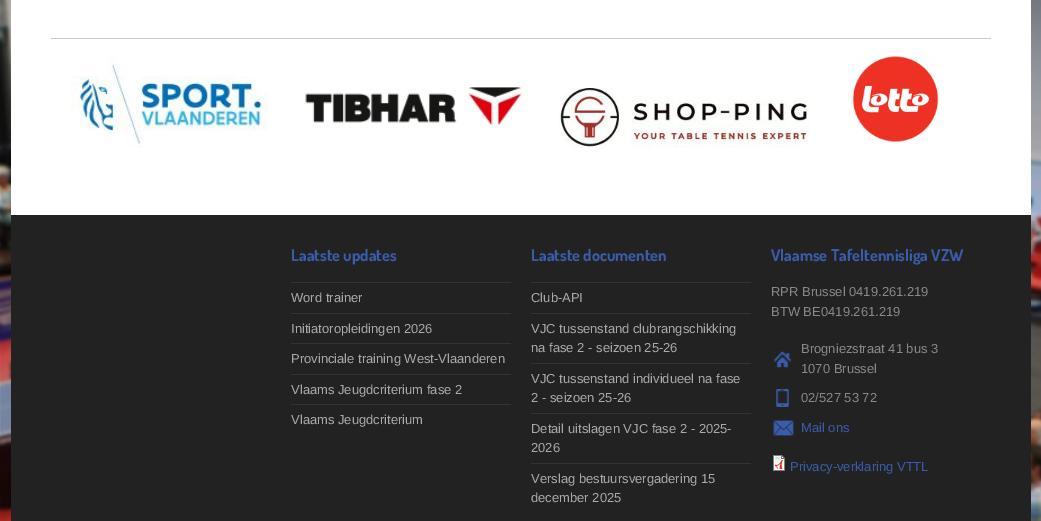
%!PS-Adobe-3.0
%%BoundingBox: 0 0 1041 521
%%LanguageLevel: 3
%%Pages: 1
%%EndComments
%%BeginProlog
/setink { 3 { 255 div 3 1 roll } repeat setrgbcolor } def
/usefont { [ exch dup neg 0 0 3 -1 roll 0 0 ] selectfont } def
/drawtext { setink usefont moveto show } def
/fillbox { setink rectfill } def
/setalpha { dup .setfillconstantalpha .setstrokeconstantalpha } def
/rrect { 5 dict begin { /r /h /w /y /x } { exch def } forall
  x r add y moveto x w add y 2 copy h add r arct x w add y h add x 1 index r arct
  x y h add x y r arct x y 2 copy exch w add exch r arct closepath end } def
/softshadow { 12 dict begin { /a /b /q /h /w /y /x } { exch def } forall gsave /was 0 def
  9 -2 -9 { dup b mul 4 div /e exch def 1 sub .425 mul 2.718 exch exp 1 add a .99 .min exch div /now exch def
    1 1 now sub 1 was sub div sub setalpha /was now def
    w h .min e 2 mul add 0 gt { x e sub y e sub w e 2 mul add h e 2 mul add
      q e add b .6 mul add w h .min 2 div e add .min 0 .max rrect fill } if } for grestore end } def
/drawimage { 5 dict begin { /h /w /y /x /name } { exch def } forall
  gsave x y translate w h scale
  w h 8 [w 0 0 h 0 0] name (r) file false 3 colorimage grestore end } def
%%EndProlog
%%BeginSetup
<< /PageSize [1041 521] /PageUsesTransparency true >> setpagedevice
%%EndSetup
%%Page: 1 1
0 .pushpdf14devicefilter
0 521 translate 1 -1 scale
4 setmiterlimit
0 0 1041 521 255 255 255 fillbox
(assets/img1.rgb) 0 0 1041 521 drawimage
0 0 0 setink
11 -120 1020 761 0 40 0.2 softshadow
11 0 1020 215 255 255 255 fillbox
51 38 940 1 204 204 204 fillbox
(assets/img2.rgb) 71 58 197 90 drawimage
(assets/img3.rgb) 305 87 217 39 drawimage
(assets/img4.rgb) 559 88 250 60 drawimage
(assets/img5.rgb) 853 56 86 86 drawimage
11 215 1020 306 34 34 34 fillbox
(Laatste updates) 291 261 /Dosis-Bold 16.25 58 92 170 drawtext
291 282 220 1 51 51 51 fillbox
291 313 220 1 51 51 51 fillbox
(Word trainer) 291 302 /LiberationSans-Regular 13 170 170 170 drawtext
291 343 220 1 51 51 51 fillbox
(Initiatoropleidingen 2026) 291 333 /LiberationSans-Regular 13 170 170 170 drawtext
291 374 220 1 51 51 51 fillbox
(Provinciale training West-Vlaanderen) 291 363 /LiberationSans-Regular 13 170 170 170 drawtext
291 404 220 1 51 51 51 fillbox
(Vlaams Jeugdcriterium fase 2) 291 394 /LiberationSans-Regular 13 170 170 170 drawtext
(Vlaams Jeugdcriterium) 291 424 /LiberationSans-Regular 13 170 170 170 drawtext
(Laatste documenten) 531 261 /Dosis-Bold 16.25 58 92 170 drawtext
531 282 220 1 51 51 51 fillbox
531 313 220 1 51 51 51 fillbox
(Club-API) 531 302 /LiberationSans-Regular 13 170 170 170 drawtext
531 363 220 1 51 51 51 fillbox
(VJC tussenstand clubrangschikking) 531 333 /LiberationSans-Regular 13 170 170 170 drawtext
(na fase 2 - seizoen 25-26) 531 352 /LiberationSans-Regular 13 170 170 170 drawtext
531 413 220 1 51 51 51 fillbox
(VJC tussenstand individueel na fase) 531 383 /LiberationSans-Regular 13 170 170 170 drawtext
(2 - seizoen 25-26) 531 402 /LiberationSans-Regular 13 170 170 170 drawtext
531 463 220 1 51 51 51 fillbox
(Detail uitslagen VJC fase 2 - 2025-) 531 433 /LiberationSans-Regular 13 170 170 170 drawtext
(2026) 531 452 /LiberationSans-Regular 13 170 170 170 drawtext
(Verslag bestuursvergadering 15) 531 483 /LiberationSans-Regular 13 170 170 170 drawtext
(december 2025) 531 502 /LiberationSans-Regular 13 170 170 170 drawtext
(Vlaamse Tafeltennisliga VZW) 771 261 /Dosis-Bold 16.25 58 92 170 drawtext
(RPR Brussel 0419.261.219) 771 296 /LiberationSans-Regular 13 137 137 137 drawtext
(BTW BE0419.261.219) 771 316 /LiberationSans-Regular 13 137 137 137 drawtext
(assets/img6.rgb) 774 351 17 17 drawimage
(Brogniezstraat 41 bus 3) 801 353 /LiberationSans-Regular 13 137 137 137 drawtext
(1070 Brussel) 801 373 /LiberationSans-Regular 13 137 137 137 drawtext
(assets/img7.rgb) 776 389 13 18 drawimage
(02/527 53 72) 801 402 /LiberationSans-Regular 13 137 137 137 drawtext
(assets/img8.rgb) 773 420 21 16 drawimage
(Mail ons) 801 432 /LiberationSans-Regular 13 58 92 170 drawtext
(assets/img9.rgb) 773 455 12 16 drawimage
(Privacy-verklaring VTTL) 790 471 /LiberationSans-Regular 13 58 92 170 drawtext
.poppdf14devicefilter showpage
%%EOF
